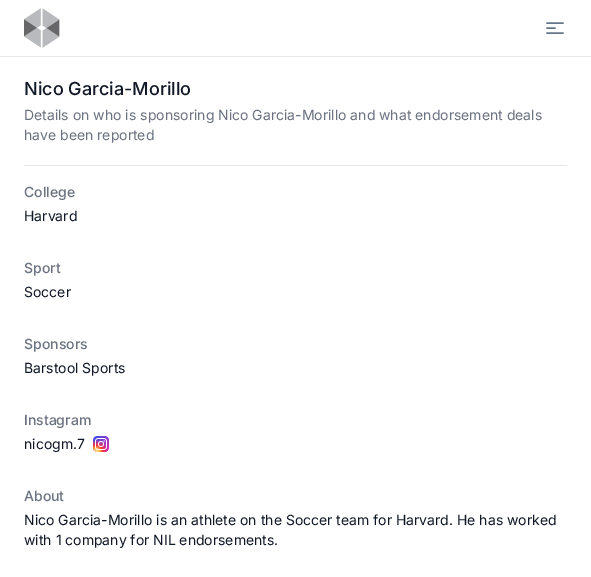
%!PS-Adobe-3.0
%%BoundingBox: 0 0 591 577
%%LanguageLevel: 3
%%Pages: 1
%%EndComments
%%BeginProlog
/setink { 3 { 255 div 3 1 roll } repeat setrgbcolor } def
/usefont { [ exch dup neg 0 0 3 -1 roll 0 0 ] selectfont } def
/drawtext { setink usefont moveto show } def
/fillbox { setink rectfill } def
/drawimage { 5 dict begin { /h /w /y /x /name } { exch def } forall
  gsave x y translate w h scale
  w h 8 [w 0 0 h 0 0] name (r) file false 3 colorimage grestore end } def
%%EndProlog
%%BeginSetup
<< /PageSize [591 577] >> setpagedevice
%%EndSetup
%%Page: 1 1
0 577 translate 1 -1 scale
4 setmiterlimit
0 0 591 577 255 255 255 fillbox
0 56 591 1 231 232 234 fillbox
(assets/img1.rgb) 24 8 36 40 drawimage
100 116 139 setink
1.5 setlinewidth
1 setlinecap
1 setlinejoin
547 23 moveto 563 23 lineto 547 28 moveto 555 28 lineto 547 33 moveto 563 33 lineto stroke
(Nico Garcia-Morillo) 24 95 /Inter-Medium 18 17 24 39 drawtext
(Details on who is sponsoring Nico Garcia-Morillo and what endorsement deals) 24 120 /Inter-Regular 14 107 114 128 drawtext
(have been reported) 24 140 /Inter-Regular 14 107 114 128 drawtext
24 165 543 1 229 231 235 fillbox
(College) 24 197 /Inter-Medium 14 107 114 128 drawtext
(Harvard) 24 221 /Inter-Regular 14 17 24 39 drawtext
(Sport) 24 273 /Inter-Medium 14 107 114 128 drawtext
(Soccer) 24 297 /Inter-Regular 14 17 24 39 drawtext
(Sponsors) 24 349 /Inter-Medium 14 107 114 128 drawtext
(Barstool Sports) 24 373 /Inter-Regular 14 17 24 39 drawtext
(Instagram) 24 425 /Inter-Medium 14 107 114 128 drawtext
(nicogm.7) 24 449 /Inter-Regular 14 17 24 39 drawtext
(assets/img2.rgb) 93 436 16 16 drawimage
(About) 24 501 /Inter-Medium 14 107 114 128 drawtext
(Nico Garcia-Morillo is an athlete on the Soccer team for Harvard. He has worked) 24 525 /Inter-Regular 14 17 24 39 drawtext
(with 1 company for NIL endorsements.) 24 545 /Inter-Regular 14 17 24 39 drawtext
showpage
%%EOF
